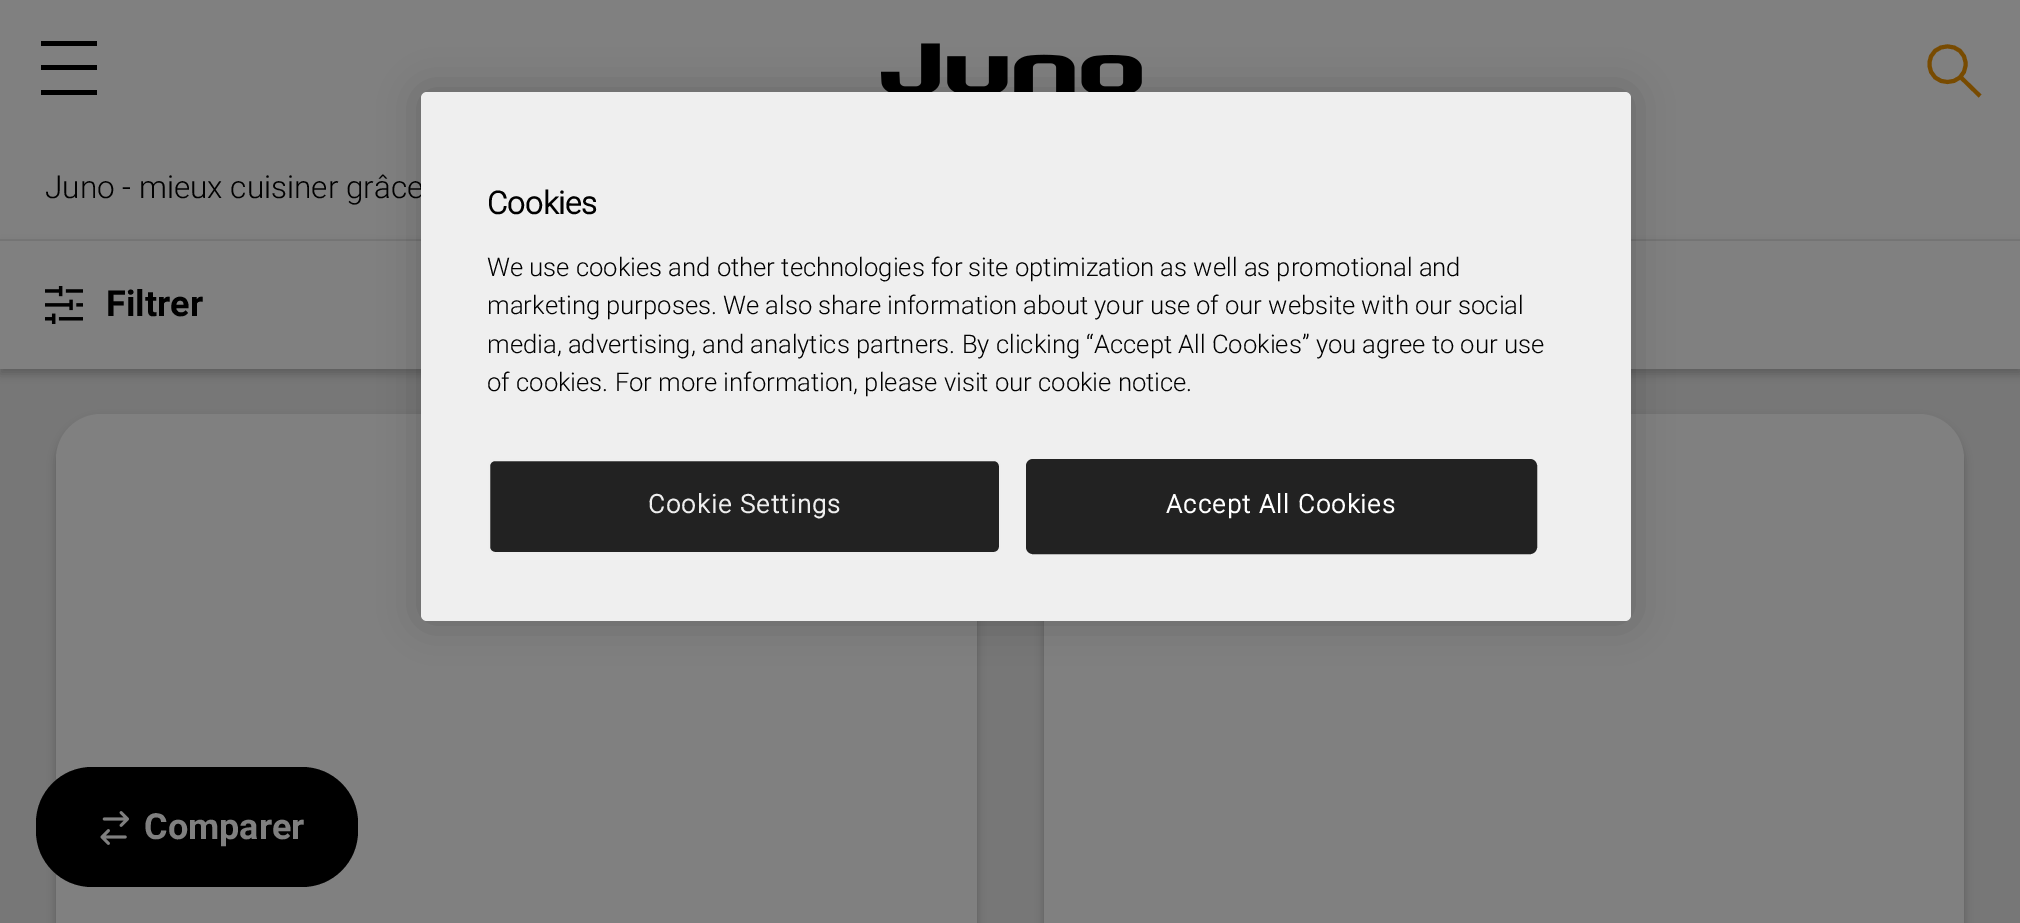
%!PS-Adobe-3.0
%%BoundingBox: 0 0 2020 923
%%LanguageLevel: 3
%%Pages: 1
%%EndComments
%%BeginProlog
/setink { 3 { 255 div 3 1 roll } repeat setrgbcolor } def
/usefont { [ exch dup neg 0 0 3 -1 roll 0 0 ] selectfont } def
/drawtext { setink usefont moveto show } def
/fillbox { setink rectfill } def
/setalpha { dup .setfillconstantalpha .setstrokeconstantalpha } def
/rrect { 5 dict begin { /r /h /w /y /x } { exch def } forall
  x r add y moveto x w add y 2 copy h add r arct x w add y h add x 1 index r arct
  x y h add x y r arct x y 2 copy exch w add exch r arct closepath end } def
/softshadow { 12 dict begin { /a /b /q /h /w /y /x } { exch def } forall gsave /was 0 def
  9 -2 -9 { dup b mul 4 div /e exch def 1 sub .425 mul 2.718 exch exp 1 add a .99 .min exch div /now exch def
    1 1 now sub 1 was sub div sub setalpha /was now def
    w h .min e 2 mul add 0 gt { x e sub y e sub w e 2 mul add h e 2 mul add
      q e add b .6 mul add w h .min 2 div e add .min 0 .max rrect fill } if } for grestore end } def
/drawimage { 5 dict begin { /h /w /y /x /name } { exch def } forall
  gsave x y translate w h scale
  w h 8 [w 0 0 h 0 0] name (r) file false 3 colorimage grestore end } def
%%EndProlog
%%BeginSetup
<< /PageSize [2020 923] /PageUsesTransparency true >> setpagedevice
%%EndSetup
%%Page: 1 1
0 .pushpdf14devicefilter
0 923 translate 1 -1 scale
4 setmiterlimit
0 0 2020 923 128 128 128 fillbox
41 65 56 5 0 0 0 fillbox
41 41 56 5 0 0 0 fillbox
41 90 56 5 0 0 0 fillbox
(assets/img1.rgb) 881 43 261 49 drawimage
120 75 1 setink
4 setlinewidth
1965.5 64 moveto 1965.5 88 1929.5 88 1929.5 64 curveto 1929.5 40.5 1965.5 40.5 1965.5 64 curveto closepath 1980 96 moveto 1961.5 78 lineto stroke
(Juno - mieux cuisiner grâce) 45 198 /Roboto-Light 31.5 0 0 0 drawtext
0 239 2020 2 120 120 120 fillbox
0 369 2020 554 119 119 119 fillbox
0 0 0 setink
56 419 921 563 45 4.5 0.2 softshadow
128 128 128 setink
56 414 921 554 45 rrect fill
0 0 0 setink
1044 419 920 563 45 4.5 0.2 softshadow
128 128 128 setink
1044 414 920 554 45 rrect fill
0 0 0 setink
421 92 1210 529 6 20 0.2 softshadow
gsave
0 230 moveto 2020 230 lineto 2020 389 lineto 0 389 lineto closepath 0 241 moveto 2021 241 lineto 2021 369 lineto 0 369 lineto closepath eoclip newpath
0 245 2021 129 0 4.5 0.2 softshadow
grestore
239 239 239 setink
421 92 1210 529 6 rrect fill
(Cookies) 487 214 /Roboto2-Bold 31.5 0 0 0 drawtext
(We use cookies and other technologies for site optimization as well as promotional and) 487 276 /Roboto-Light 25.6 0 0 0 drawtext
(marketing purposes. We also share information about your use of our website with our social) 487 314 /Roboto-Light 25.6 0 0 0 drawtext
(media, advertising, and analytics partners. By clicking “Accept All Cookies” you agree to our use) 487 353 /Roboto-Light 25.6 0 0 0 drawtext
(of cookies. For more information, please visit our cookie notice.) 487 391 /Roboto-Light 25.6 0 0 0 drawtext
34 34 34 setink
489 460 511 93 6 rrect gsave fill grestore
238 238 238 setink
2 setlinewidth
stroke
/Roboto2-Bold 25.6 usefont
648 513 moveto 1.25 0 (Cookie Settings) ashow
34 34 34 setink
1027 460 509 93 6 rrect gsave fill grestore
stroke
255 255 255 setink
1166 513 moveto 1.25 0 (Accept All Cookies) ashow
(assets/img2.rgb) 45 286 38 38 drawimage
(Filtrer) 106 316 /Roboto-Bold 36 0 0 0 drawtext
36 767 322 120 56 rrect fill
(assets/img3.rgb) 100 811 29 34 drawimage
(Comparer) 144 839 /Roboto-Bold 36 128 128 128 drawtext
.poppdf14devicefilter showpage
%%EOF
